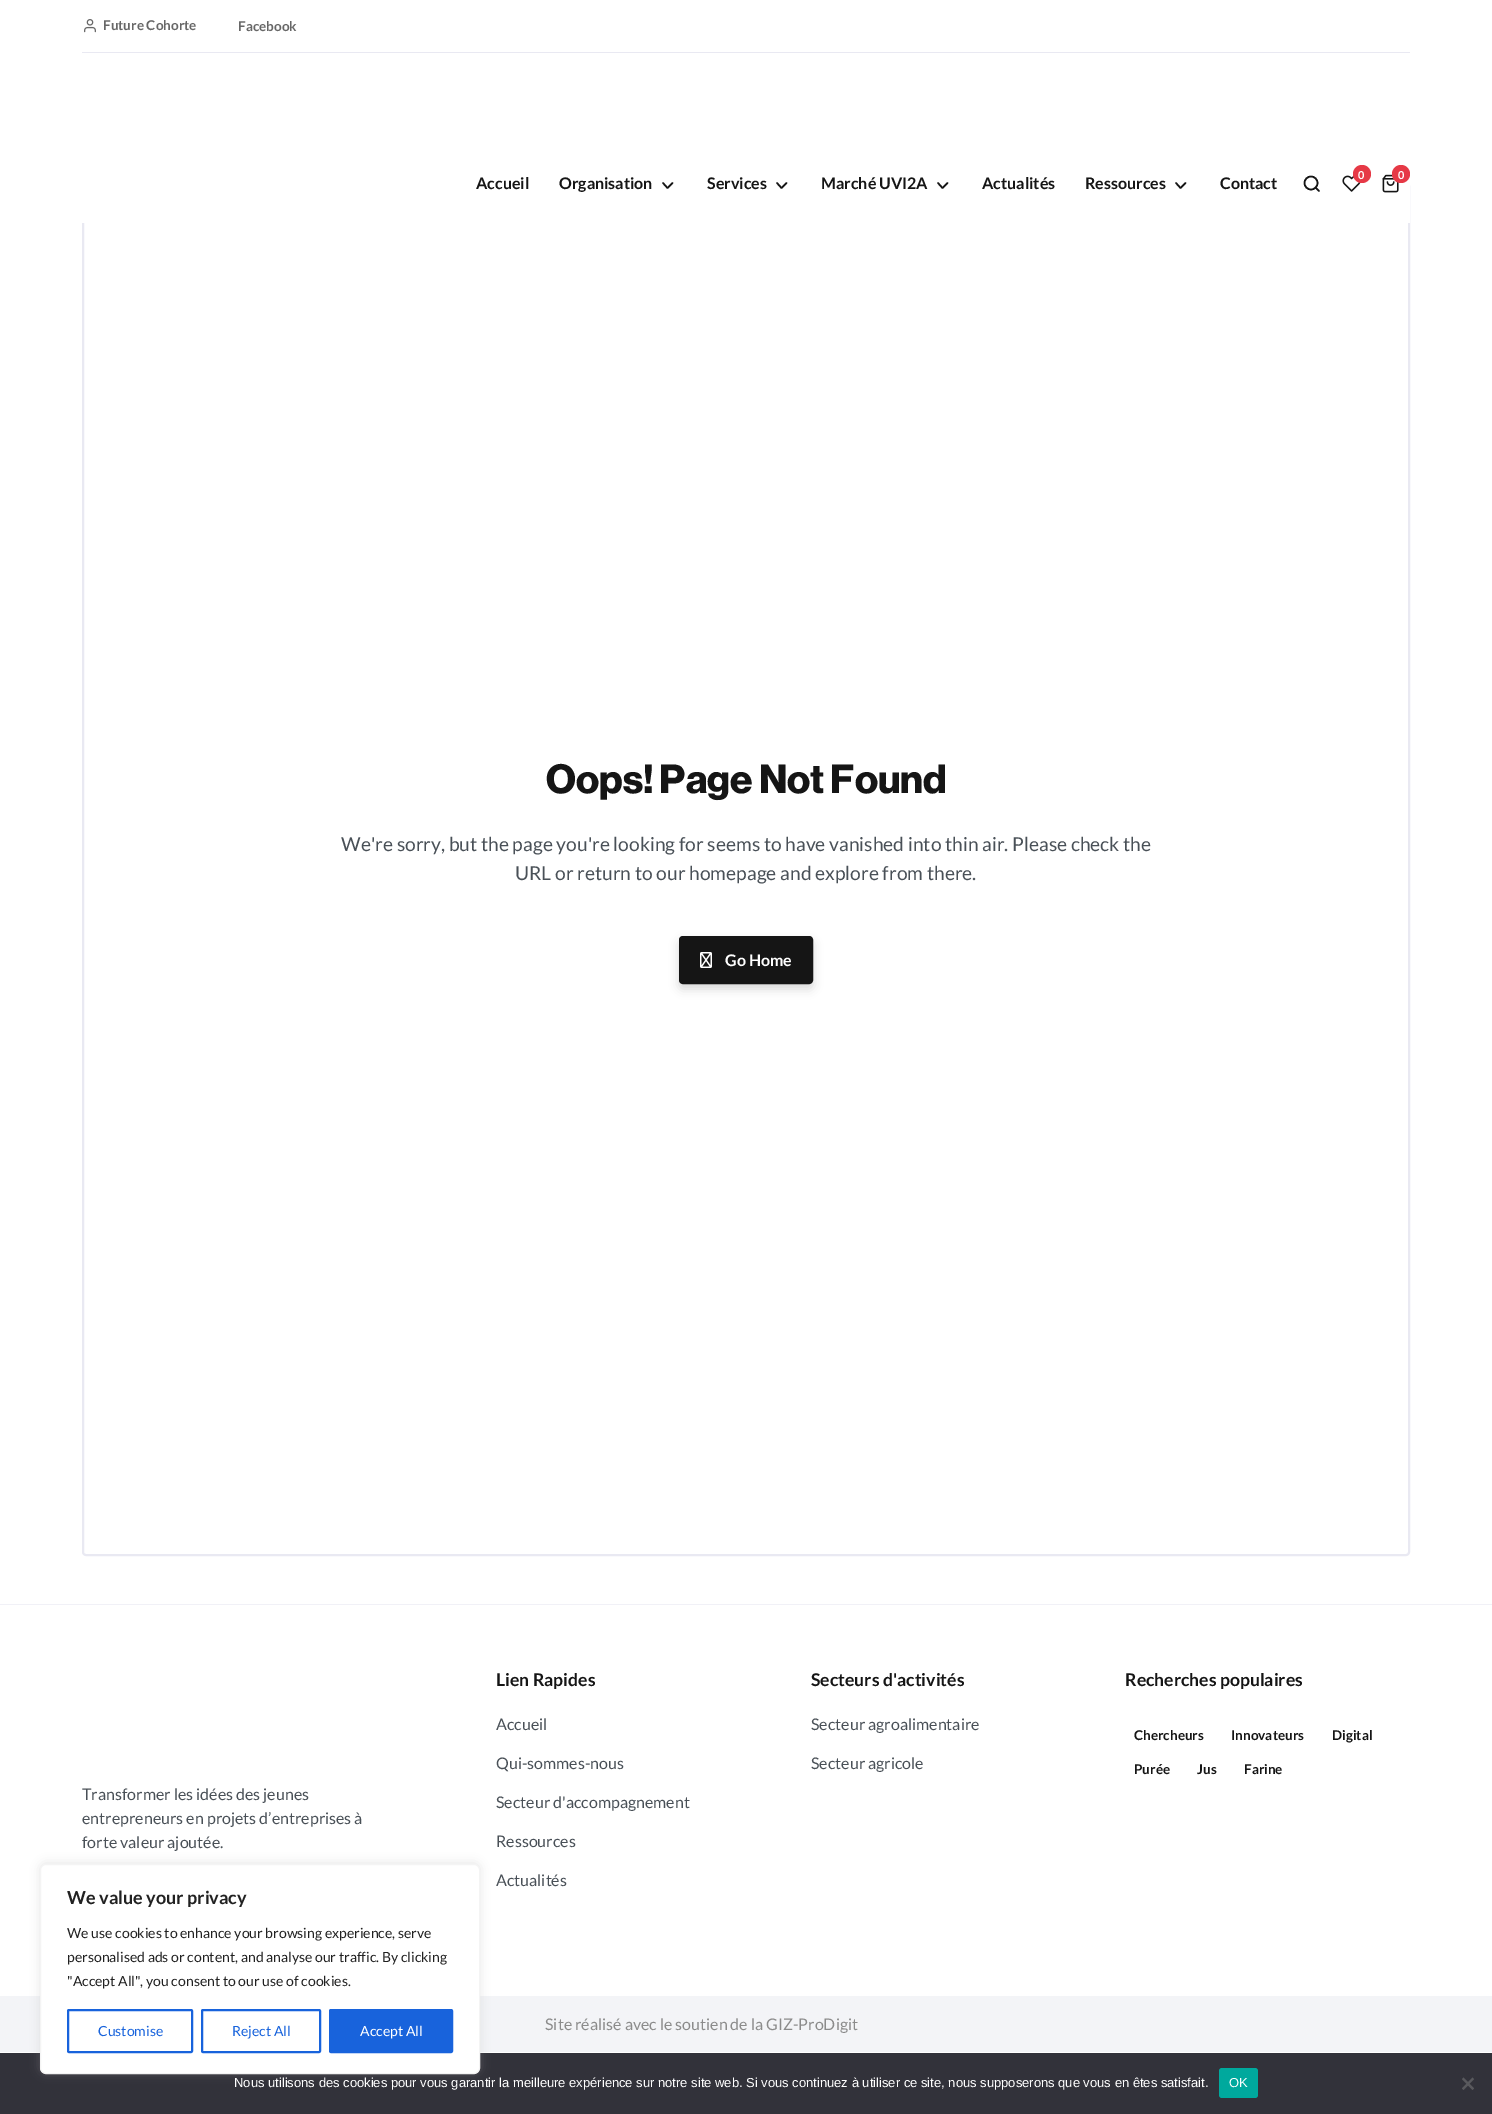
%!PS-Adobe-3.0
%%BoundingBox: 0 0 1492 2114
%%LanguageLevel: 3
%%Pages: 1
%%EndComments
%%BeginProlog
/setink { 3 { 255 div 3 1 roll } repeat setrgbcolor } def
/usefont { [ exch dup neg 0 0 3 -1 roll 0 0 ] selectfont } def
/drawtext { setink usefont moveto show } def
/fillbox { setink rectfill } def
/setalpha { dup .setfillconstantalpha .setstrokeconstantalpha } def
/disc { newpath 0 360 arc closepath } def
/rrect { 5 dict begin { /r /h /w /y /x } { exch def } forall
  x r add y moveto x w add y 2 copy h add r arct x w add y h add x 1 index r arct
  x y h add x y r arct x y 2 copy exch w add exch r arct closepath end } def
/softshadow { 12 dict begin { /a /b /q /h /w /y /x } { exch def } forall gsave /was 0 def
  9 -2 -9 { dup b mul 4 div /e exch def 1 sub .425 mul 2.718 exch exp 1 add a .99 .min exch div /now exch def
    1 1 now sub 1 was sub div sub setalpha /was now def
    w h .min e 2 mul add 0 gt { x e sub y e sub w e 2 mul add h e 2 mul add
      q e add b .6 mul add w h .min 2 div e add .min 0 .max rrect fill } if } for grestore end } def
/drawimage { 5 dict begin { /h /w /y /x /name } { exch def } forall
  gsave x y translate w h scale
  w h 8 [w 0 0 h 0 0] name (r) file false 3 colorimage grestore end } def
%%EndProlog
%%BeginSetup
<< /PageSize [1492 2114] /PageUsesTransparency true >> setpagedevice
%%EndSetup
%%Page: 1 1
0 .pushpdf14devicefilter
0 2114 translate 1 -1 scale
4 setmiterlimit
0 0 1492 2114 255 255 255 fillbox
233 233 242 setink
2 setlinewidth
83 183 1326 1372 3 rrect stroke
82 182 1328 41 255 255 255 fillbox
(assets/img1.rgb) 84 19 12 14 drawimage
(Future Cohorte) 103 30 /Lato-Bold 13.5 103 103 103 drawtext
(Facebook) 238 31 /Lato-Bold 13.5 103 103 103 drawtext
82 52 1328 1 233 233 242 fillbox
21 21 21 setink
1.6 setlinewidth
1311 183 6.5 disc stroke
1 setlinecap
1 setlinejoin
1319 191 moveto 1315.5 187.5 lineto stroke
(assets/img2.rgb) 1342 175 19 17 drawimage
230 57 70 setink
1362 174 9 disc fill
(0) 1358 179 /Lato-Bold 11 255 255 255 drawtext
(assets/img3.rgb) 1382 174 17 19 drawimage
230 57 70 setink
1401 174 9 disc fill
(0) 1398 179 /Lato-Bold 11 255 255 255 drawtext
(Accueil) 476 189 /Lato-Bold 16 21 21 21 drawtext
(Organisation) 559 189 /Lato-Bold 16 21 21 21 drawtext
663 183 moveto 667.5 188 lineto 672.5 183 lineto stroke
(Services) 707 189 /Lato-Bold 16 21 21 21 drawtext
777 183 moveto 781.5 188 lineto 786.5 183 lineto stroke
(Marché UVI2A) 821 189 /Lato-Bold 16 21 21 21 drawtext
938 183 moveto 942.5 188 lineto 947.5 183 lineto stroke
(Actualités) 982 189 /Lato-Bold 16 21 21 21 drawtext
(Ressources) 1085 189 /Lato-Bold 16 21 21 21 drawtext
1176 183 moveto 1180.5 188 lineto 1185.5 183 lineto stroke
(Contact) 1220 189 /Lato-Bold 16 21 21 21 drawtext
(Oops! Page Not Found) 546 793 /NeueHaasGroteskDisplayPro-Bold 40 21 21 21 drawtext
(We're sorry, but the page you're looking for seems to have vanished into thin air. Please check the) 341 851 /Lato-Regular 19.2 73 80 87 drawtext
(URL or return to our homepage and explore from there.) 515 880 /Lato-Regular 19.2 73 80 87 drawtext
0 0 0 setink
679 941 134 48 4 5 0.15 softshadow
21 21 21 setink
681.5 938.5 129 43 1.5 rrect gsave fill grestore
5 setlinewidth
0 setlinecap
0 setlinejoin
stroke
(assets/img4.rgb) 700 952 12 16 drawimage
(Go Home) 725 966 /Lato-Bold 16 255 255 255 drawtext
0 1604 1492 1 241 241 247 fillbox
(Lien Rapides) 496 1686 /Lato-Bold 17.6 21 21 21 drawtext
(Accueil) 496 1730 /Lato-Regular 16 73 80 87 drawtext
(Qui-sommes-nous) 496 1769 /Lato-Regular 16 73 80 87 drawtext
(Secteur d'accompagnement) 496 1808 /Lato-Regular 16 73 80 87 drawtext
(Ressources) 496 1847 /Lato-Regular 16 73 80 87 drawtext
(Actualités) 496 1886 /Lato-Regular 16 73 80 87 drawtext
(Secteurs d'activités) 811 1686 /Lato-Bold 17.6 21 21 21 drawtext
(Secteur agroalimentaire) 811 1730 /Lato-Regular 16 73 80 87 drawtext
(Secteur agricole) 811 1769 /Lato-Regular 16 73 80 87 drawtext
(Recherches populaires) 1125 1686 /Lato-Bold 17.6 21 21 21 drawtext
(Chercheurs) 1134 1740 /Lato-Bold 13.5 21 21 21 drawtext
(Innovateurs) 1231 1740 /Lato-Bold 13.5 21 21 21 drawtext
(Digital) 1332 1740 /Lato-Bold 13.5 21 21 21 drawtext
(Purée) 1134 1774 /Lato-Bold 13.5 21 21 21 drawtext
(Jus) 1197 1774 /Lato-Bold 13.5 21 21 21 drawtext
(Farine) 1244 1774 /Lato-Bold 13.5 21 21 21 drawtext
(Transformer les idées des jeunes) 82 1800 /Lato-Regular 16 73 80 87 drawtext
(entrepreneurs en projets d’entreprises à) 82 1824 /Lato-Regular 16 73 80 87 drawtext
(forte valeur ajoutée.) 82 1848 /Lato-Regular 16 73 80 87 drawtext
0 1996 1492 56 243 244 247 fillbox
(Site réalisé avec le soutien de la GIZ-ProDigit) 545 2030 /Lato-Regular 16 139 139 139 drawtext
0 2053 1492 61 50 50 58 fillbox
172 171 171 setink
40 1863 440 210 6 5 0.3 softshadow
255 255 255 setink
40.5 1864.5 439 209 5.5 rrect gsave fill grestore
244 244 244 setink
1 setlinewidth
stroke
(We value your privacy) 67 1904 /Lato-Bold 18 33 33 33 drawtext
(We use cookies to enhance your browsing experience, serve) 67 1938 /Lato-Regular 14 33 33 33 drawtext
(personalised ads or content, and analyse our traffic. By clicking) 67 1962 /Lato-Regular 14 33 33 33 drawtext
("Accept All", you consent to our use of cookies.) 67 1986 /Lato-Regular 14 33 33 33 drawtext
24 99 220 setink
2 setlinewidth
68 2010 124 42 1 rrect stroke
(Customise) 98 2036 /Lato-Regular 14 24 99 220 drawtext
202 2010 118 42 1 rrect stroke
(Reject All) 232 2036 /Lato-Regular 14 24 99 220 drawtext
330 2010 122 42 1 rrect gsave fill grestore
stroke
(Accept All) 360 2036 /Lato-Regular 14 255 255 255 drawtext
(Nous utilisons des cookies pour vous garantir la meilleure expérience sur notre site web. Si vous continuez à utiliser ce site, nous supposerons que vous en êtes satisfait.) 234 2087 /LiberationSans-Regular 13 255 255 255 drawtext
0 169 157 setink
1219 2068 39 30 3 rrect fill
(OK) 1229 2087 /LiberationSans-Regular 13 255 255 255 drawtext
89 89 93 setink
1472.5 2077.5 moveto 1474 2079 lineto 1463.5 2090 lineto 1462 2088.5 lineto closepath fill
1462 2079 moveto 1463.5 2077.5 lineto 1474 2088.5 lineto 1472.5 2090 lineto closepath fill
.poppdf14devicefilter showpage
%%EOF
